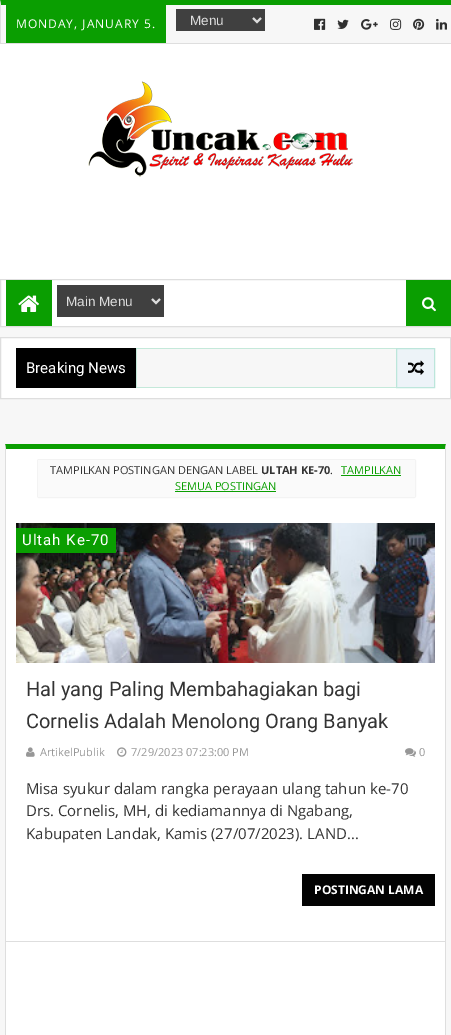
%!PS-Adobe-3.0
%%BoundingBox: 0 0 451 1035
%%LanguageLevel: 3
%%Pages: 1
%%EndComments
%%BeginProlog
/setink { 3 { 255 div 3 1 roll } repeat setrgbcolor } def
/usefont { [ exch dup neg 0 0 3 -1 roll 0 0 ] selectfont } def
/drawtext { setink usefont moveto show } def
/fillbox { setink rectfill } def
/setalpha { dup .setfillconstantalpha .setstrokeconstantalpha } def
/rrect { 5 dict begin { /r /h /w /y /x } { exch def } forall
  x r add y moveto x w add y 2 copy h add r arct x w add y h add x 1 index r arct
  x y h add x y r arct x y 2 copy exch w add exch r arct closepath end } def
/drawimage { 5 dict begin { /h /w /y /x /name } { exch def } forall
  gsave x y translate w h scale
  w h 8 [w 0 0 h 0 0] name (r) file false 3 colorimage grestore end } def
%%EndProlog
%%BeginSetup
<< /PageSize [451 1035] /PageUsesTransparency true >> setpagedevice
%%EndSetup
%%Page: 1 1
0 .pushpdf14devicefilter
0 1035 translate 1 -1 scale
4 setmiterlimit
0 0 451 1035 247 247 247 fillbox
10 158 1 setink
0 0 moveto 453 0 lineto 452 5 lineto 1 5 lineto closepath fill
0 43 451 1 222 222 222 fillbox
0 44 moveto 0 0 lineto 1 5 lineto 1 43 lineto closepath fill
6 5 160 38 10 158 1 fillbox
/OpenSans-Regular 12 usefont
255 255 255 setink
16 28 moveto 1 0 (MONDAY, JANUARY 5.) ashow
176 9 89 22 64 64 64 fillbox
221 221 221 setink
2 setlinewidth
253 18 moveto 257 22 lineto 261 18 lineto stroke
(Menu) 190 25 /LiberationSans-Regular 13.5 221 221 221 drawtext
(assets/img1.rgb) 314 18 12 12 drawimage
(assets/img2.rgb) 337 19 12 10 drawimage
(assets/img3.rgb) 361 19 17 11 drawimage
(assets/img4.rgb) 390 18 12 12 drawimage
(assets/img5.rgb) 413 18 12 12 drawimage
(assets/img6.rgb) 436 18 11 12 drawimage
0 44 451 235 255 255 255 fillbox
(assets/img7.rgb) 88 81 265 96 drawimage
1 280 405 46 255 255 255 fillbox
222 222 222 setink
1 setlinewidth
0.5 279.5 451 47 rectstroke
6 280 46 46 10 158 1 fillbox
(assets/img8.rgb) 18 295 21 17 drawimage
57 285 107 32 64 64 64 fillbox
221 221 221 setink
2 setlinewidth
152 299 moveto 156 303 lineto 160 299 lineto stroke
(Main Menu) 66 306 /LiberationSans-Regular 13.5 221 221 221 drawtext
406 280 45 46 10 158 1 fillbox
(assets/img9.rgb) 422 297 14 15 drawimage
255 255 255 setink
0.5 337.5 moveto 450.5 337.5 lineto 450.5 398.5 lineto 0.5 398.5 lineto closepath gsave fill grestore
222 222 222 setink
1 setlinewidth
stroke
136 348 260 40 247 247 247 fillbox
16 348 120 40 0 0 0 fillbox
(Breaking News) 26 373 /Roboto-Regular 15 255 255 255 drawtext
196 233 218 setink
136 348 moveto 396 348 lineto 396 349 lineto 137 349 lineto closepath fill
396 388 moveto 136 388 lineto 137 387 lineto 396 387 lineto closepath fill
0.22 setalpha
14 185 117 setink
136 388 moveto 136 348 lineto 137 349 lineto 137 387 lineto closepath fill
1 setalpha
237 243 248 setink
396.5 348.5 moveto 434.5 348.5 lineto 434.5 387.5 lineto 396.5 387.5 lineto closepath gsave fill grestore
188 230 219 setink
stroke
(assets/img10.rgb) 408 360 16 15 drawimage
6 449 439 492 255 255 255 fillbox
10 158 1 setink
5 444 moveto 446 444 lineto 445 449 lineto 6 449 lineto closepath fill
222 222 222 setink
446 444 moveto 446 942 lineto 445 941 lineto 445 449 lineto closepath fill
5 941 441 1 222 222 222 fillbox
5 942 moveto 5 444 lineto 6 449 lineto 6 941 lineto closepath fill
243 243 243 setink
37.5 459.5 378 38 1.5 rrect stroke
38 460 377 37 250 250 250 fillbox
(TAMPILKAN POSTINGAN DENGAN LABEL) 50 474 /OpenSans-Regular 11 51 51 51 drawtext
(ULTAH KE-70) 261 474 /OpenSans-Bold 11 51 51 51 drawtext
(.) 330 474 /OpenSans-Regular 11 51 51 51 drawtext
(TAMPILKAN) 341 474 /OpenSans-Regular 11 10 158 1 drawtext
341 475 60 1 10 158 1 fillbox
(SEMUA POSTINGAN) 175 490 /OpenSans-Regular 11 10 158 1 drawtext
175 491 101 1 10 158 1 fillbox
(assets/img11.rgb) 16 523 419 140 drawimage
16 528 100 25 10 158 1 fillbox
/Roboto-Regular 15 usefont
255 255 255 setink
22 545 moveto 1 0 (Ultah Ke-70) ashow
(Hal yang Paling Membahagiakan bagi) 26 696 /Roboto-Regular 20 51 51 51 drawtext
(Cornelis Adalah Menolong Orang Banyak) 26 728 /Roboto-Regular 20 51 51 51 drawtext
(assets/img12.rgb) 26 747 9 10 drawimage
(ArtikelPublik) 40 756 /OpenSans-Regular 11 151 151 151 drawtext
(assets/img13.rgb) 117 747 10 10 drawimage
(7/29/2023 07:23:00 PM) 131 756 /OpenSans-Regular 11 151 151 151 drawtext
(assets/img14.rgb) 405 748 11 9 drawimage
(0) 419 756 /OpenSans-Regular 11 151 151 151 drawtext
(Misa syukur dalam rangka perayaan ulang tahun ke-70) 26 794 /OpenSans-Regular 15 51 51 51 drawtext
(Drs. Cornelis, MH, di kediamannya di Ngabang,) 26 816 /OpenSans-Regular 15 51 51 51 drawtext
(Kabupaten Landak, Kamis \(27/07/2023\). LAND...) 26 839 /OpenSans-Regular 15 51 51 51 drawtext
302 874 133 32 3 3 3 fillbox
(POSTINGAN LAMA) 314 894 /OpenSans-Bold 12 255 255 255 drawtext
6 942 439 93 255 255 255 fillbox
445 942 1 93 222 222 222 fillbox
5 942 1 93 222 222 222 fillbox
.poppdf14devicefilter showpage
%%EOF
